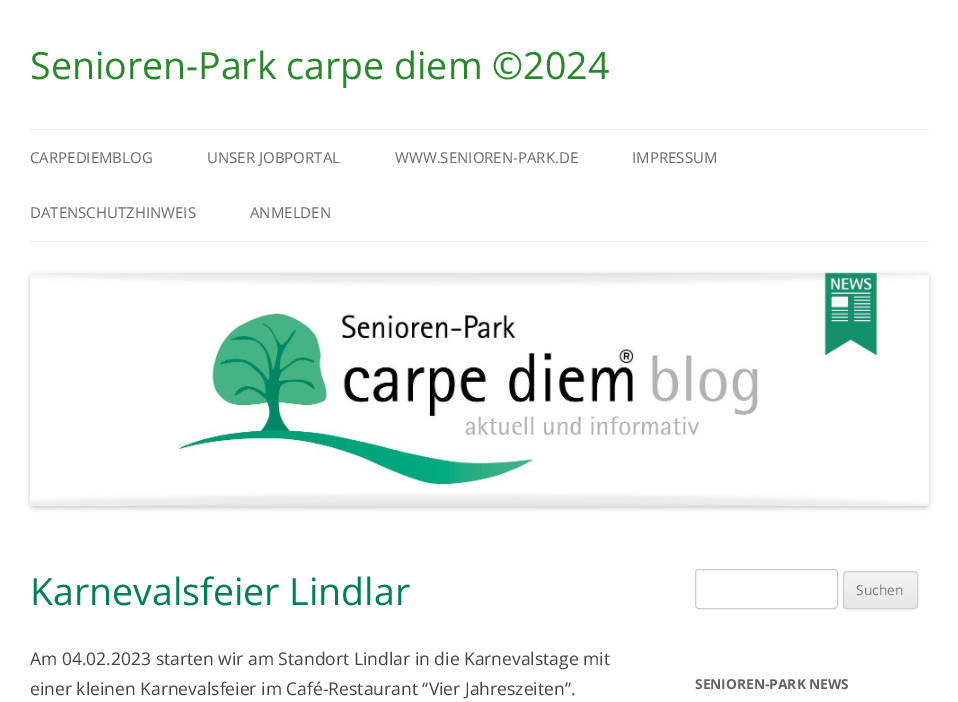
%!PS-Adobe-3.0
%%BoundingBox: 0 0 958 702
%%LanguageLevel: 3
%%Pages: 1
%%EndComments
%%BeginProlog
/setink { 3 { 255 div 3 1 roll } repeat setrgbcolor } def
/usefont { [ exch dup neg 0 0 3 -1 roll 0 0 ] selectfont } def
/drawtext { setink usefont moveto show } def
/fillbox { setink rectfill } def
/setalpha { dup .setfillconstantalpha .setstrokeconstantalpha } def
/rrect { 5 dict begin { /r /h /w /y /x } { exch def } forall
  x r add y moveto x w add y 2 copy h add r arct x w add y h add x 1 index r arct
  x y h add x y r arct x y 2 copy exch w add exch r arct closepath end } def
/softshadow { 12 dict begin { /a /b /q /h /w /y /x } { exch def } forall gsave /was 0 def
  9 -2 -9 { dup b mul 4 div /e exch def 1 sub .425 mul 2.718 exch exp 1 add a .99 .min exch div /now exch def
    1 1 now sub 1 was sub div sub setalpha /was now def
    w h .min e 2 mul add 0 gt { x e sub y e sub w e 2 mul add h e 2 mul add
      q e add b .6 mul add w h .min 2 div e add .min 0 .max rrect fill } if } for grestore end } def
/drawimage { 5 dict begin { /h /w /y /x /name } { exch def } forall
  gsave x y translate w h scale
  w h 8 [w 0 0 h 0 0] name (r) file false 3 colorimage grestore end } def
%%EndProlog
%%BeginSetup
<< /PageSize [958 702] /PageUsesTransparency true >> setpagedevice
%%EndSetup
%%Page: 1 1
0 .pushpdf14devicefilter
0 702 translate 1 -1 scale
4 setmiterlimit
0 0 958 702 255 255 255 fillbox
(Senioren-Park carpe diem ©2024) 30 79 /OpenSans-Regular 37.5 39 135 43 drawtext
30 129 899 1 237 237 237 fillbox
30 241 899 1 237 237 237 fillbox
(CARPEDIEMBLOG) 30 163 /OpenSans-Regular 15 106 106 106 drawtext
(UNSER JOBPORTAL) 207 163 /OpenSans-Regular 15 106 106 106 drawtext
(WWW.SENIOREN-PARK.DE) 395 163 /OpenSans-Regular 15 106 106 106 drawtext
(IMPRESSUM) 632 163 /OpenSans-Regular 15 106 106 106 drawtext
(DATENSCHUTZHINWEIS) 30 218 /OpenSans-Regular 15 106 106 106 drawtext
(ANMELDEN) 250 218 /OpenSans-Regular 15 106 106 106 drawtext
0 0 0 setink
30 274 899 234 4 2.5 0.2 softshadow
(assets/img1.rgb) 30 272 899 234 drawimage
(Karnevalsfeier Lindlar) 30 605 /OpenSans-Regular 37.5 0 126 91 drawtext
(Am 04.02.2023 starten wir am Standort Lindlar in die Karnevalstage mit) 30 665 /OpenSans-Regular 17.5 68 68 68 drawtext
(einer kleinen Karnevalsfeier im Café-Restaurant “Vier Jahreszeiten”.) 30 695 /OpenSans-Regular 17.5 68 68 68 drawtext
204 204 204 setink
695.5 569.5 142 39 3.5 rrect stroke
64 64 64 setink
843 573 75 37 4 1 0.1 softshadow
230 230 230 setink
843 571 75 38 4 rrect fill
gsave
843 571 75 38 4 rrect clip newpath
gsave 843 573 moveto 918 573 lineto 918 608 lineto 843 608 lineto closepath clip newpath
<< /ShadingType 2 /ColorSpace /DeviceRGB /Coords [880 573 880 608] /Extend [true true] /Function << /FunctionType 2 /Domain [0 1] /C0 [0.957 0.957 0.957] /C1 [0.902 0.902 0.902] /N 1 >> >> shfill grestore
grestore
210 210 210 setink
843.5 571.5 74 37 3.5 rrect stroke
(Suchen) 856 595 /OpenSans-Regular 13.75 124 124 124 drawtext
(SENIOREN-PARK NEWS) 695 689 /OpenSans-Bold 13.75 99 99 99 drawtext
.poppdf14devicefilter showpage
%%EOF
